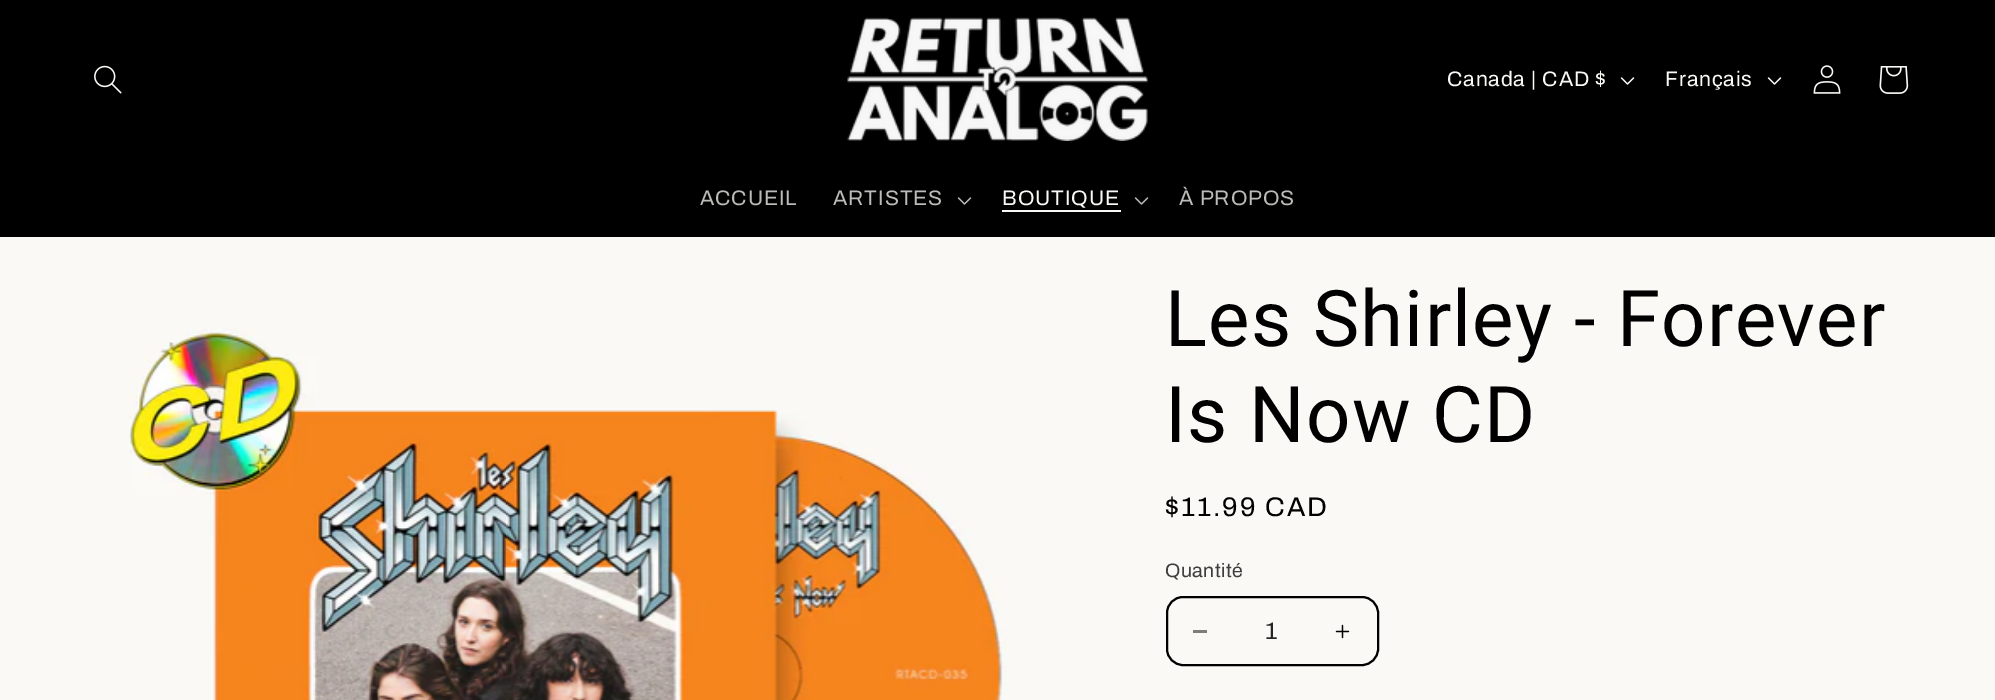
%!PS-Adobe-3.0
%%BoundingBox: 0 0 1995 700
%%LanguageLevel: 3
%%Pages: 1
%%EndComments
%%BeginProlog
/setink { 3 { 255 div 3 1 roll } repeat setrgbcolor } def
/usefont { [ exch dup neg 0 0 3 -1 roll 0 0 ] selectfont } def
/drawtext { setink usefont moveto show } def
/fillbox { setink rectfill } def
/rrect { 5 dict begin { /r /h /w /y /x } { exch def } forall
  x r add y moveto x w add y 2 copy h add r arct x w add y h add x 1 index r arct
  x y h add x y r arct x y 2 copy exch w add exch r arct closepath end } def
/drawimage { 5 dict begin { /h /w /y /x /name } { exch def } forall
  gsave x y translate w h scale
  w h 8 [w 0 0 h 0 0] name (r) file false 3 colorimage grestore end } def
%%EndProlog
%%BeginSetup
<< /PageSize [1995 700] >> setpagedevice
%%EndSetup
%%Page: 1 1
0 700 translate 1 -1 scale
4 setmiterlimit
0 0 1995 700 250 249 245 fillbox
0 0 1995 237 0 0 0 fillbox
(assets/img1.rgb) 94 65 28 29 drawimage
(assets/img2.rgb) 847 17 301 124 drawimage
/Archivo-Regular 21 usefont
250 249 245 setink
1447 86 moveto 0.9 0 (Canada | CAD $) ashow
(assets/img3.rgb) 1620 77 15 8 drawimage
1665 86 moveto 0.9 0 (Français) ashow
(assets/img3.rgb) 1767 77 15 8 drawimage
(assets/img4.rgb) 1813 65 28 29 drawimage
(assets/img5.rgb) 1879 66 30 28 drawimage
188 187 184 setink
700 205 moveto 0.9 0 (ACCUEIL) ashow
833 205 moveto 0.9 0 (ARTISTES) ashow
(assets/img6.rgb) 957 197 15 8 drawimage
250 249 245 setink
1002 205 moveto 0.9 0 (BOUTIQUE) ashow
1002 210 119 2 250 249 245 fillbox
(assets/img6.rgb) 1134 197 15 8 drawimage
188 187 184 setink
1179 205 moveto 0.9 0 (À PROPOS) ashow
(assets/img7.rgb) 128 327 879 373 drawimage
/Roboto-Regular 78 usefont
0 0 0 setink
1165 346 moveto 1.2 0 (Les Shirley - Forever) ashow
1165 442 moveto 1.2 0 (Is Now CD) ashow
/Archivo-Regular 27 usefont
1165 516 moveto 2 0 ($11.99 CAD) ashow
/Archivo-Regular 19.5 usefont
63 62 61 setink
1165 577 moveto 0.5 0 (Quantité) ashow
1193 630 14 3 125 125 123 fillbox
(assets/img8.rgb) 1335 624 15 15 drawimage
0 0 0 setink
2 setlinewidth
1167 597 211 68 16 rrect stroke
(1) 1265 639 /Archivo-Regular 24 38 37 37 drawtext
showpage
%%EOF
